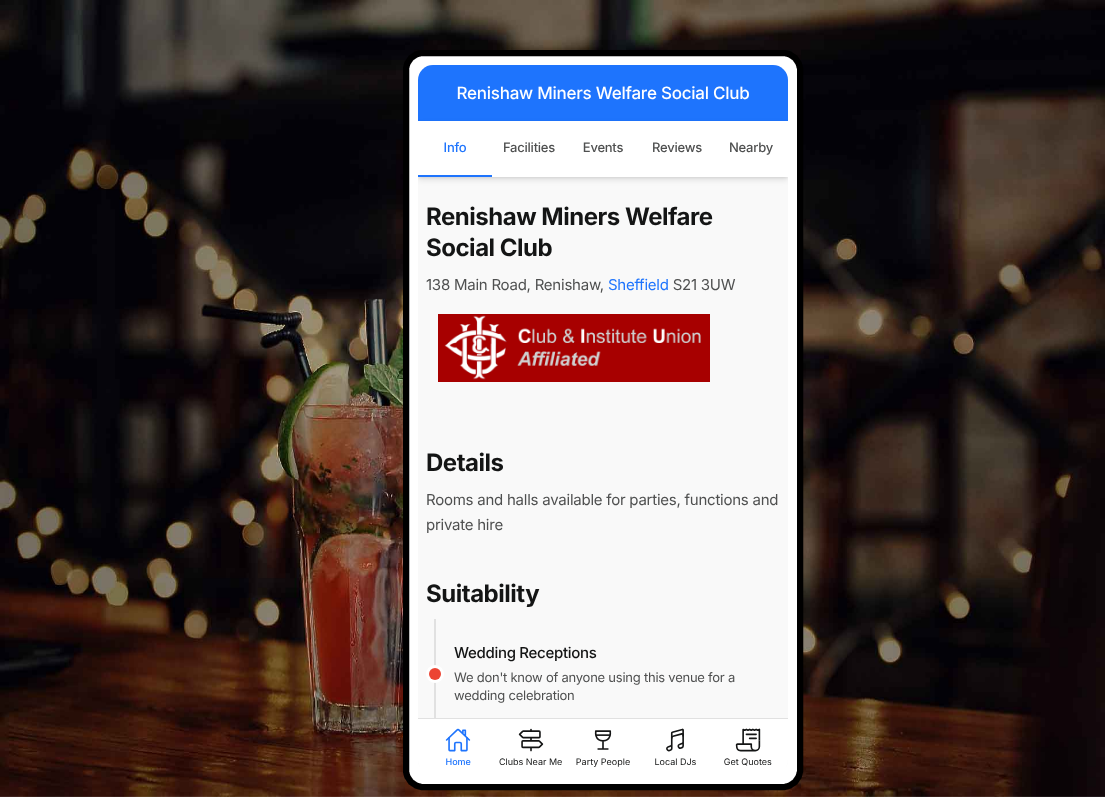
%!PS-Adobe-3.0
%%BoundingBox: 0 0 1105 797
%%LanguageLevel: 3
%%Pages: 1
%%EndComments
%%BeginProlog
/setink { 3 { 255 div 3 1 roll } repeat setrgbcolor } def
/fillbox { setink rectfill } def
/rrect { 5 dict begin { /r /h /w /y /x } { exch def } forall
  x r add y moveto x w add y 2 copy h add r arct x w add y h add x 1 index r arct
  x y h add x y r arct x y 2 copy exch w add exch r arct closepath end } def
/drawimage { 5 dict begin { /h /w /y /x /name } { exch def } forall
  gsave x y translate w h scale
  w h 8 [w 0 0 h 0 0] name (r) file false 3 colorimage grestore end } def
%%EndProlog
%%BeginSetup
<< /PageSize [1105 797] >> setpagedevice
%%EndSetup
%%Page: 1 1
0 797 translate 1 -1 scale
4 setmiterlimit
0 0 1105 797 255 255 255 fillbox
(assets/img1.rgb) 0 0 1105 797 drawimage
406 53 394 734 17 rrect gsave fill grestore
0 0 0 setink
6 setlinewidth
stroke
(assets/img2.rgb) 418 65 370 702 drawimage
showpage
%%EOF
